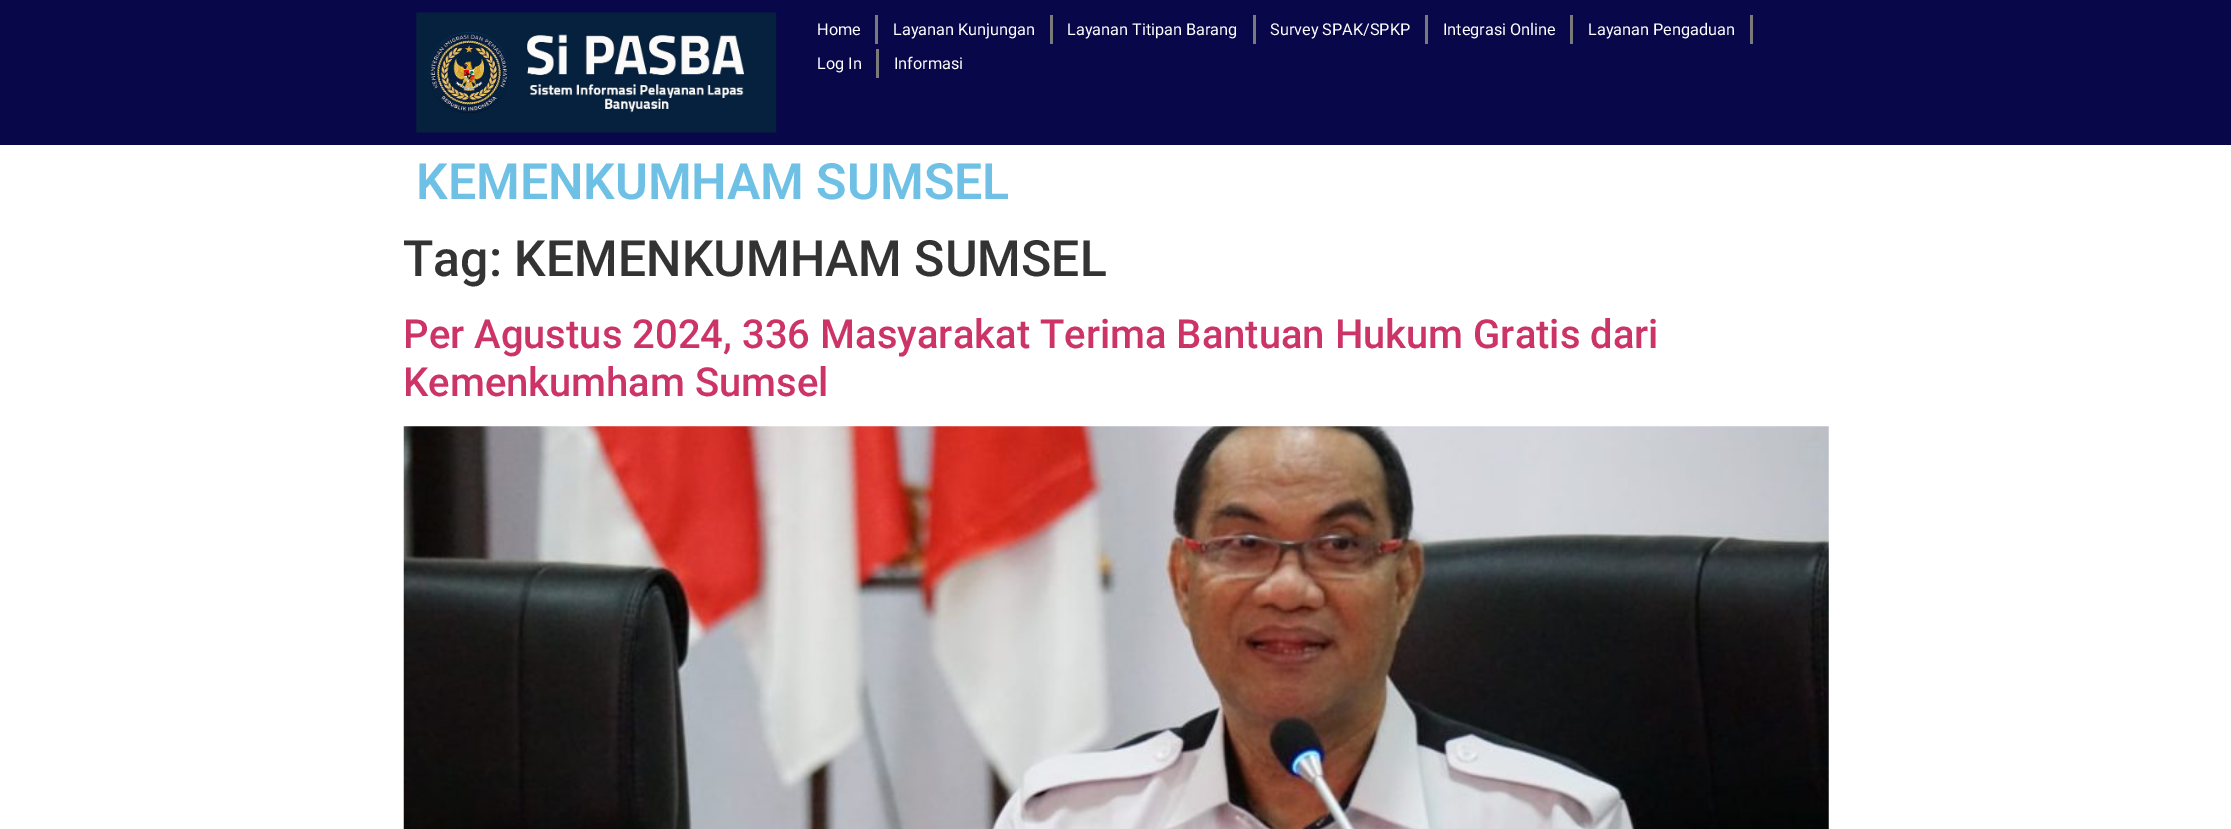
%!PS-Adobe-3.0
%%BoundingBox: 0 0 2231 829
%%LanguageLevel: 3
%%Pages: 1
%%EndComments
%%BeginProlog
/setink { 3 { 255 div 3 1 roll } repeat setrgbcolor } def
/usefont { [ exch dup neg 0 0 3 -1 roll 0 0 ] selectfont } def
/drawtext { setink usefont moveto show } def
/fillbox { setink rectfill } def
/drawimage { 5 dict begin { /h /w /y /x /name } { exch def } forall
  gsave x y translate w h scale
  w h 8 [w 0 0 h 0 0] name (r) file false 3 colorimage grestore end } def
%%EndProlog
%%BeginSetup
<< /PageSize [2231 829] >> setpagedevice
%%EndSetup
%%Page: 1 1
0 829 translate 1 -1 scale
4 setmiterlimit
0 0 2231 829 255 255 255 fillbox
0 0 2231 145 8 7 74 fillbox
(assets/img1.rgb) 416 12 361 121 drawimage
(Home) 817 35 /Roboto-Regular 16.25 255 255 255 drawtext
875 15 3 29 122 122 122 fillbox
(Layanan Kunjungan) 893 35 /Roboto-Regular 16.25 255 255 255 drawtext
1050 15 3 29 122 122 122 fillbox
(Layanan Titipan Barang) 1067 35 /Roboto-Regular 16.25 255 255 255 drawtext
1253 15 3 29 122 122 122 fillbox
(Survey SPAK/SPKP) 1270 35 /Roboto-Regular 16.25 255 255 255 drawtext
1425 15 3 29 122 122 122 fillbox
(Integrasi Online) 1443 35 /Roboto-Regular 16.25 255 255 255 drawtext
1570 15 3 29 122 122 122 fillbox
(Layanan Pengaduan) 1588 35 /Roboto-Regular 16.25 255 255 255 drawtext
1750 15 3 29 122 122 122 fillbox
(Log In) 817 69 /Roboto-Regular 16.25 255 255 255 drawtext
876 49 3 29 122 122 122 fillbox
(Informasi) 894 69 /Roboto-Regular 16.25 255 255 255 drawtext
(KEMENKUMHAM SUMSEL) 416 199 /Roboto-SemiBold 50 110 193 228 drawtext
(Tag: KEMENKUMHAM SUMSEL) 403 276 /Roboto-Medium 50 51 51 51 drawtext
(Per Agustus 2024, 336 Masyarakat Terima Bantuan Hukum Gratis dari) 403 348 /Roboto-Medium 40 204 51 102 drawtext
(Kemenkumham Sumsel) 403 396 /Roboto-Medium 40 204 51 102 drawtext
(assets/img2.rgb) 403 426 1426 403 drawimage
showpage
%%EOF
